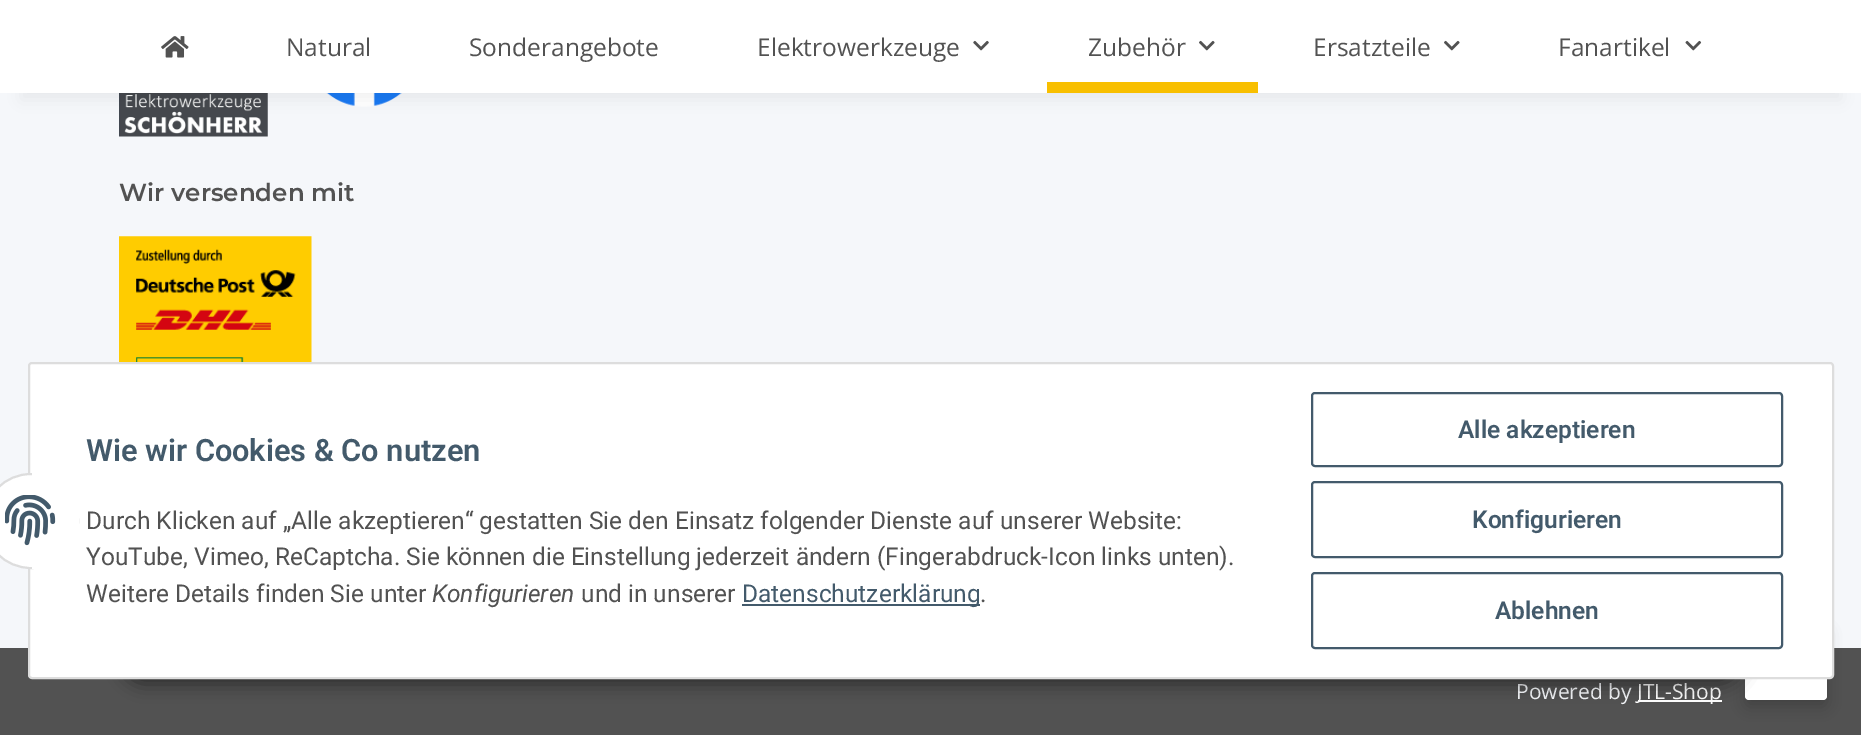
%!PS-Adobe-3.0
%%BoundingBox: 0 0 1861 735
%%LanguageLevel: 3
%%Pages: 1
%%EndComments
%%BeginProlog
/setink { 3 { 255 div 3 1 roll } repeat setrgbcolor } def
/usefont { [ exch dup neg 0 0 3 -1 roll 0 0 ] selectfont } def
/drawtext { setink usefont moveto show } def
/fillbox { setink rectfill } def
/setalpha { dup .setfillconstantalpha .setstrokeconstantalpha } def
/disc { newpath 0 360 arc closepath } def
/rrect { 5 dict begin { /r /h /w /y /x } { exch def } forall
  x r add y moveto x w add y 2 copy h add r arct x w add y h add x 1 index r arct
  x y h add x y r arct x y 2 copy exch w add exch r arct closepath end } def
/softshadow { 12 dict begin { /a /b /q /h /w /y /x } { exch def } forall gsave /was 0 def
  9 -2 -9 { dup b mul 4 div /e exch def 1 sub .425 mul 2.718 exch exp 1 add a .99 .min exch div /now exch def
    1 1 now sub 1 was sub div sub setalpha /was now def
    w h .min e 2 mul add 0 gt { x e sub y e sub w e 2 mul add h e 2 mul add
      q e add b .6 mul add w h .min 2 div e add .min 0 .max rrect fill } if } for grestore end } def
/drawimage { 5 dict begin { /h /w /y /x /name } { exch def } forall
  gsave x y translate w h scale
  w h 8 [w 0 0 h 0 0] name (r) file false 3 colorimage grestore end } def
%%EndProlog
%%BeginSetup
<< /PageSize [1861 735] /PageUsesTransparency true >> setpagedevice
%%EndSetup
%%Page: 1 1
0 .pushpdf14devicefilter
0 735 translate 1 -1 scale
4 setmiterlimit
0 0 1861 735 245 247 250 fillbox
(assets/img5.rgb) 119 93 149 44 drawimage
(assets/img6.rgb) 326 93 76 14 drawimage
0 0 0 setink
21 49 1820 51 0 8 0.06 softshadow
0 0 1861 93 255 255 255 fillbox
(assets/img1.rgb) 161 36 28 22 drawimage
(Natural) 286 56 /OpenSans-Regular 24.5 82 82 82 drawtext
(Sonderangebote) 469 56 /OpenSans-Regular 24.5 82 82 82 drawtext
(Elektrowerkzeuge) 757 56 /OpenSans-Regular 24.5 82 82 82 drawtext
(assets/img2.rgb) 973 40 16 11 drawimage
(Zubehör) 1088 56 /OpenSans-Regular 24.5 82 82 82 drawtext
(assets/img3.rgb) 1199 40 16 11 drawimage
1047 82 211 11 248 191 0 fillbox
(Ersatzteile) 1313 56 /OpenSans-Regular 24.5 82 82 82 drawtext
(assets/img3.rgb) 1444 40 16 11 drawimage
(Fanartikel) 1558 56 /OpenSans-Regular 24.5 82 82 82 drawtext
(assets/img4.rgb) 1685 40 17 11 drawimage
(Wir versenden mit) 119 201 /Montserrat-SemiBold 24.5 82 82 82 drawtext
(assets/img7.rgb) 119 236 193 126 drawimage
0 648 1861 87 82 82 82 fillbox
(Powered by) 1516 699 /OpenSans-Regular 21 245 247 250 drawtext
1638 700 84 2 255 255 255 fillbox
(JTL-Shop) 1637 699 /OpenSans-Regular 21 255 255 255 drawtext
0 0 0 setink
1745 630 82 77 4 7 0.2 softshadow
255 255 255 setink
1745 623 82 77 4 rrect fill
0 0 0 setink
121 628 1622 56 28 9 0.45 softshadow
255 255 255 setink
29 363 1804 315 3 rrect gsave fill grestore
221 221 221 setink
2 setlinewidth
stroke
255 255 255 setink
31 521 47 disc gsave fill grestore
221 221 221 setink
stroke
32 473 47 96 255 255 255 fillbox
(assets/img8.rgb) 5 495 51 51 drawimage
(Wie wir Cookies & Co nutzen) 86 461 /Roboto-SemiBold 30.75 67 90 107 drawtext
(Durch Klicken auf „Alle akzeptieren“ gestatten Sie den Einsatz folgender Dienste auf unserer Website:) 86 529 /Roboto-Regular 24.5 82 82 82 drawtext
(YouTube, Vimeo, ReCaptcha. Sie können die Einstellung jederzeit ändern \(Fingerabdruck-Icon links unten\).) 86 565 /Roboto-Regular 24.5 82 82 82 drawtext
(Weitere Details finden Sie unter) 86 602 /Roboto-Regular 24.5 82 82 82 drawtext
(Konfigurieren) 432 602 /Roboto-Italic 24.5 82 82 82 drawtext
(und in unserer) 581 602 /Roboto-Regular 24.5 82 82 82 drawtext
742 604 238 2 67 90 107 fillbox
(Datenschutzerklärung) 742 602 /Roboto-Regular 24.5 67 90 107 drawtext
(.) 980 602 /Roboto-Regular 24.5 82 82 82 drawtext
67 90 107 setink
1312 393 470 73 3 rrect stroke
(Alle akzeptieren) 1458 438 /Roboto-SemiBold 24.5 67 90 107 drawtext
1312 482 470 75 3 rrect stroke
(Konfigurieren) 1472 528 /Roboto-SemiBold 24.5 67 90 107 drawtext
1312 573 470 75 3 rrect stroke
(Ablehnen) 1495 619 /Roboto-SemiBold 24.5 67 90 107 drawtext
.poppdf14devicefilter showpage
%%EOF
